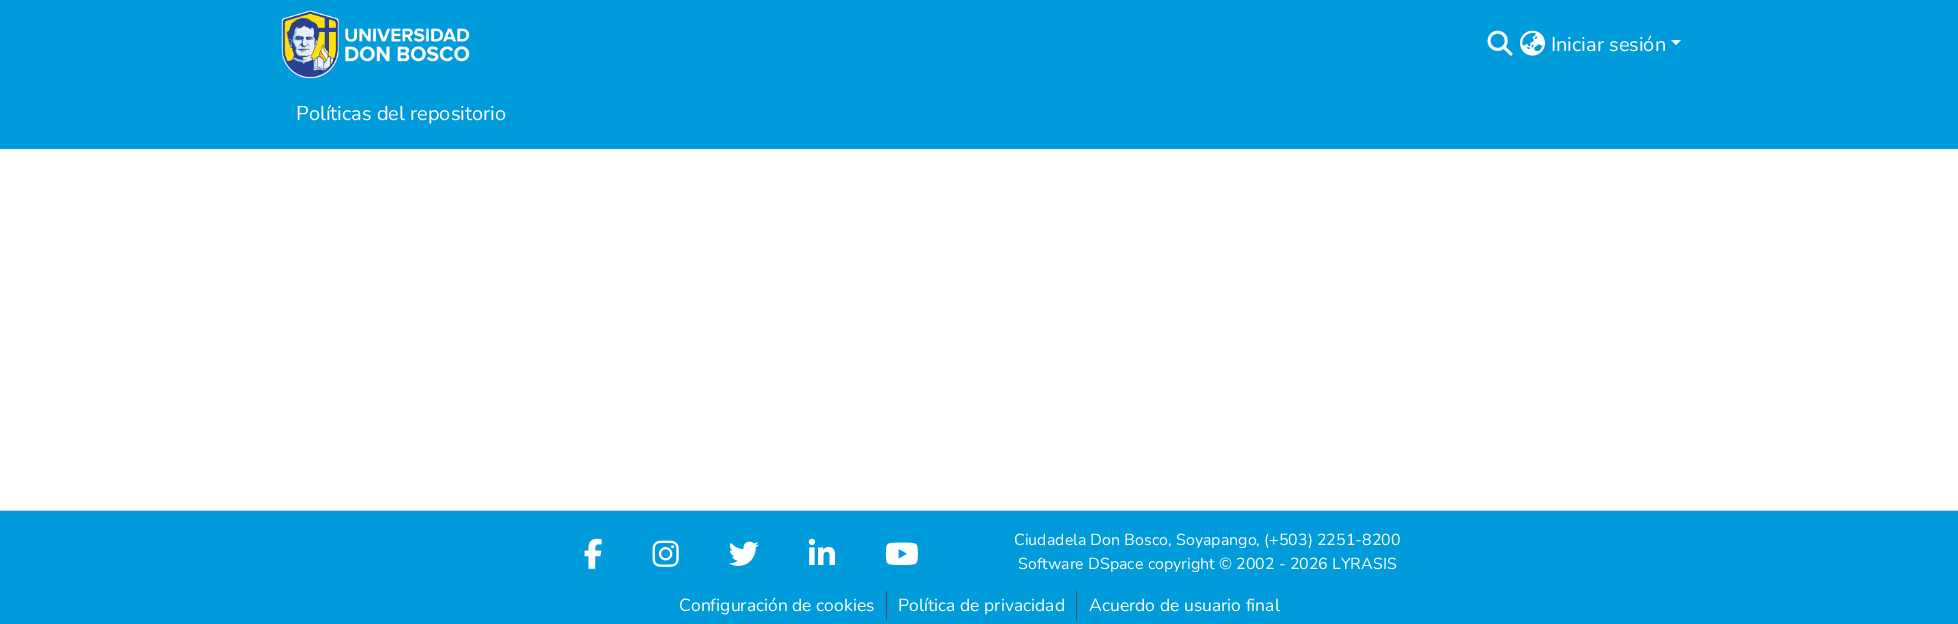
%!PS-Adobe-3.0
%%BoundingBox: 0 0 1958 624
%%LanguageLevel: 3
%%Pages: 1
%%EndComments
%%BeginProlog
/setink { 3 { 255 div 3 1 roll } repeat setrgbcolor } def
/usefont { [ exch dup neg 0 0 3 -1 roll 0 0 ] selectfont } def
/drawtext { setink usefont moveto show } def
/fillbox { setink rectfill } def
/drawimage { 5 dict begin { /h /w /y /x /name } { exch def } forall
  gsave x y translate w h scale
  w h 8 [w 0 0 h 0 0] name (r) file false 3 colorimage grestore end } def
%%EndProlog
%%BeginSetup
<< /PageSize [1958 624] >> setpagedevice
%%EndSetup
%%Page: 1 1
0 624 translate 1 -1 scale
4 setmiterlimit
0 0 1958 624 255 255 255 fillbox
0 0 1958 149 0 155 219 fillbox
(assets/img1.rgb) 281 10 189 69 drawimage
(assets/img2.rgb) 1487 30 26 26 drawimage
(assets/img3.rgb) 1520 30 25 26 drawimage
(Iniciar sesión) 1551 51 /Nunito-Regular 20 255 255 255 drawtext
1671 40 moveto 1681 40 lineto 1676 45 lineto closepath fill
(Políticas del repositorio) 296 120 /Nunito-Regular 20 255 255 255 drawtext
0 511 1958 113 0 155 219 fillbox
0 510 1958 1 206 212 218 fillbox
(assets/img4.rgb) 584 538 18 31 drawimage
(assets/img5.rgb) 652 540 27 27 drawimage
(assets/img6.rgb) 729 541 30 25 drawimage
(assets/img7.rgb) 808 538 27 27 drawimage
(assets/img8.rgb) 885 542 33 23 drawimage
(Ciudadela Don Bosco, Soyapango, \(+503\) 2251-8200) 1014 545 /Nunito-Regular 16 255 255 255 drawtext
(Software DSpace copyright © 2002 - 2026 LYRASIS) 1018 569 /Nunito-Regular 16 255 255 255 drawtext
(Configuración de cookies) 679 611 /Nunito-Regular 17.5 255 255 255 drawtext
886 591 1 29 73 80 87 fillbox
(Política de privacidad) 898 611 /Nunito-Regular 17.5 255 255 255 drawtext
1076 591 1 29 73 80 87 fillbox
(Acuerdo de usuario final) 1089 611 /Nunito-Regular 17.5 255 255 255 drawtext
showpage
%%EOF
